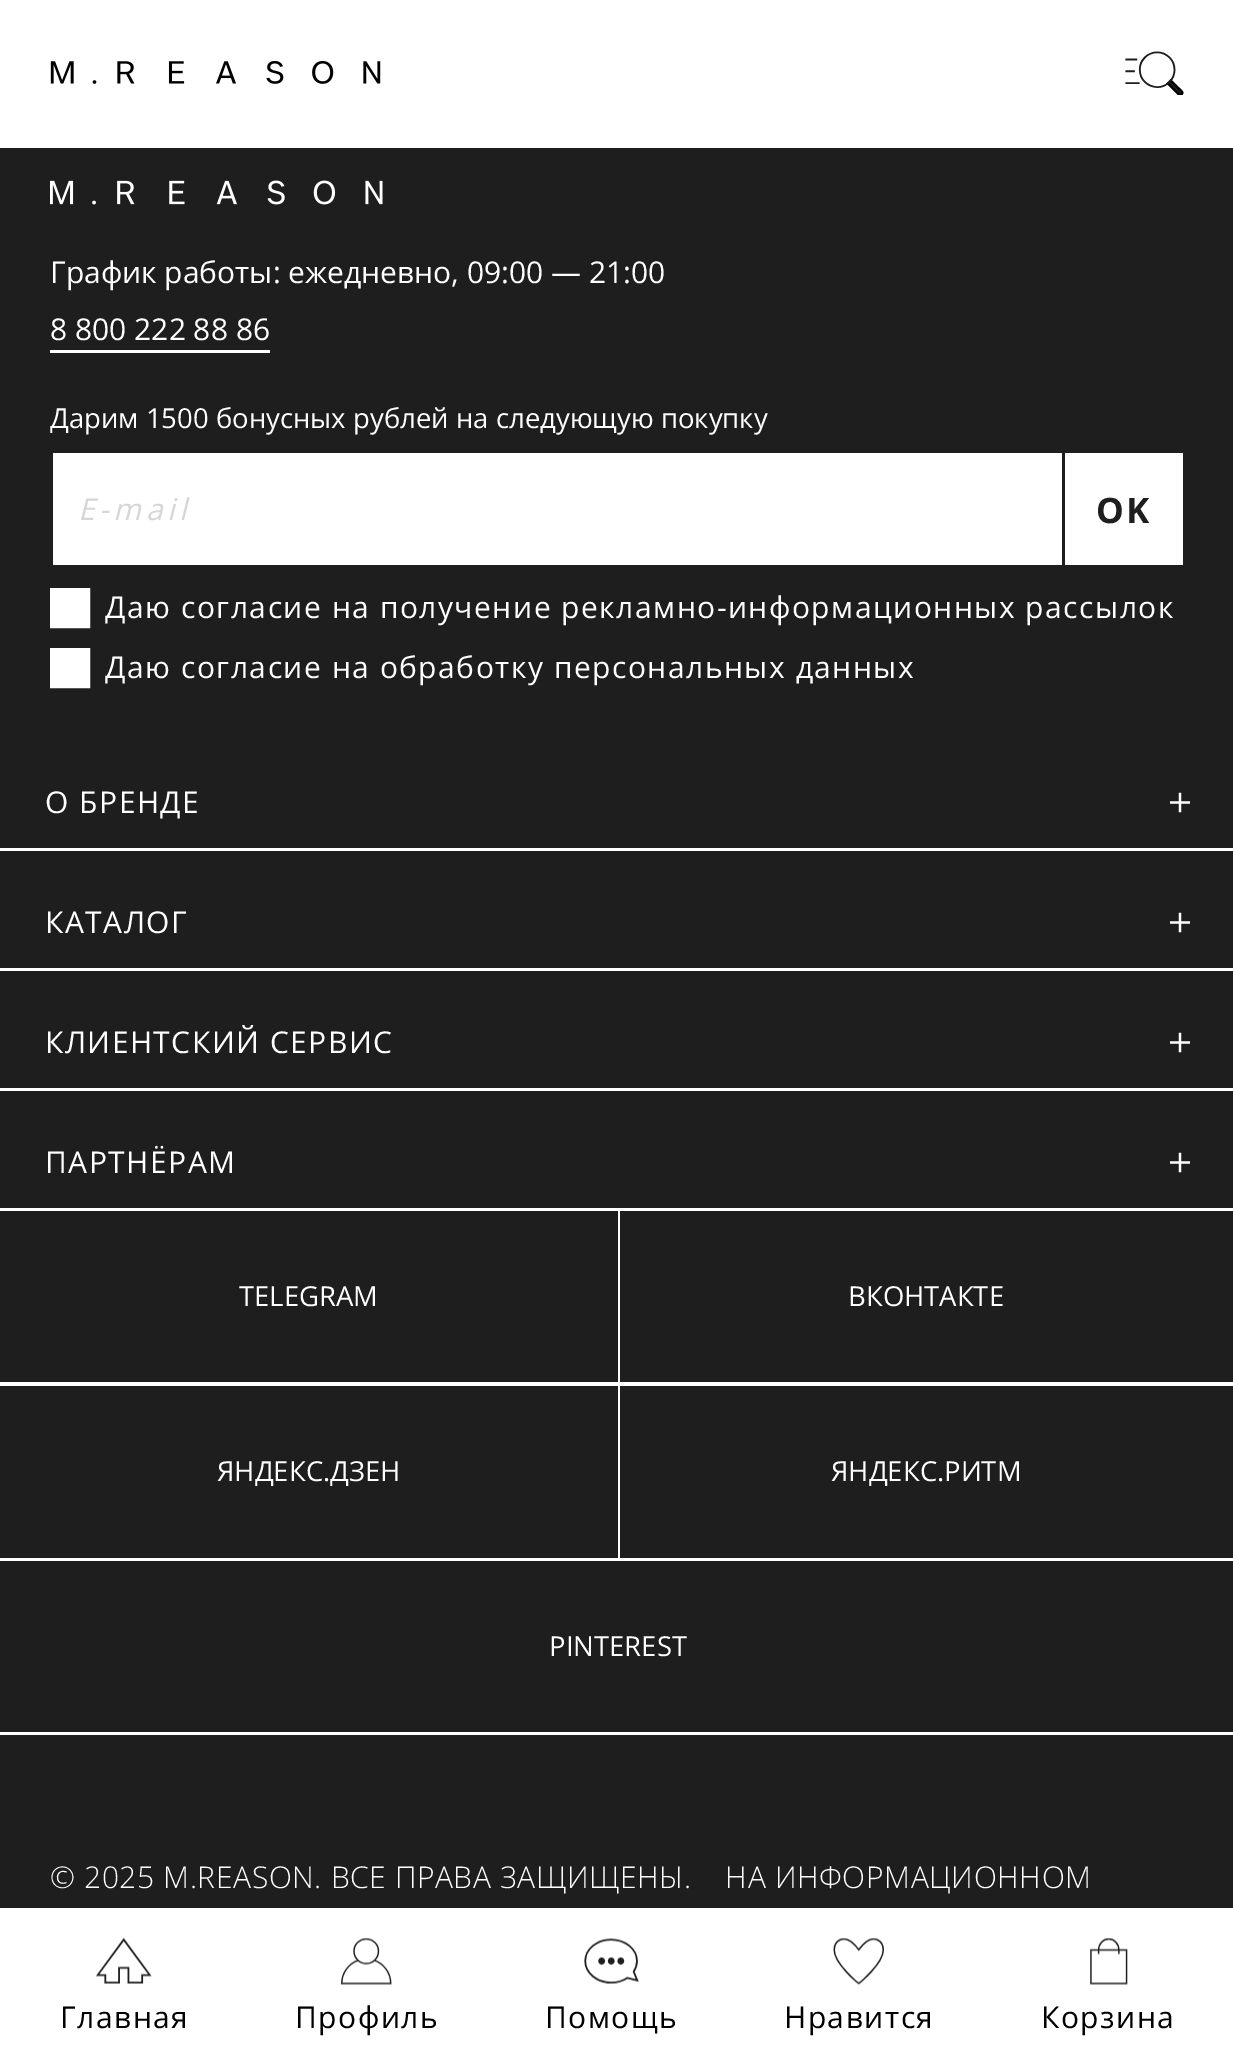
%!PS-Adobe-3.0
%%BoundingBox: 0 0 1233 2063
%%LanguageLevel: 3
%%Pages: 1
%%EndComments
%%BeginProlog
/setink { 3 { 255 div 3 1 roll } repeat setrgbcolor } def
/usefont { [ exch dup neg 0 0 3 -1 roll 0 0 ] selectfont } def
/drawtext { setink usefont moveto show } def
/fillbox { setink rectfill } def
/drawimage { 5 dict begin { /h /w /y /x /name } { exch def } forall
  gsave x y translate w h scale
  w h 8 [w 0 0 h 0 0] name (r) file false 3 colorimage grestore end } def
%%EndProlog
%%BeginSetup
<< /PageSize [1233 2063] >> setpagedevice
%%EndSetup
%%Page: 1 1
0 2063 translate 1 -1 scale
4 setmiterlimit
0 0 1233 2063 30 30 30 fillbox
0 0 1233 148 255 255 255 fillbox
(assets/img1.rgb) 50 61 331 23 drawimage
(assets/img2.rgb) 1125 51 59 44 drawimage
(assets/img3.rgb) 50 180 333 25 drawimage
(График работы: ежедневно, 09:00 — 21:00) 50 283 /OpenSans-Regular 30 255 255 255 drawtext
50 350 220 3 255 255 255 fillbox
(8 800 222 88 86) 50 340 /OpenSans-Regular 30 255 255 255 drawtext
(Дарим 1500 бонусных рублей на следующую покупку) 50 428 /OpenSans-Regular 27.5 255 255 255 drawtext
53 453 1009 112 255 255 255 fillbox
/OpenSans-Italic 30 usefont
214 214 214 setink
78 520 moveto 4.5 0 (E-mail) ashow
1065 453 118 112 255 255 255 fillbox
/OpenSans-Bold 35 usefont
30 30 30 setink
1096 523 moveto 2 0 (OK) ashow
255 255 255 setink
3 setlinewidth
51.5 589.5 37 37 rectstroke
53 591 34 34 255 255 255 fillbox
/OpenSans-Regular 30 usefont
105 618 moveto 1.5 0 (Даю согласие на получение рекламно-информационных рассылок) ashow
51.5 649.5 37 37 rectstroke
53 651 34 34 255 255 255 fillbox
105 678 moveto 1.5 0 (Даю согласие на обработку персональных данных) ashow
0 848 1233 3 255 255 255 fillbox
45 813 moveto 1.5 0 (О БРЕНДЕ) ashow
(assets/img4.rgb) 1170 792 20 21 drawimage
0 968 1233 3 255 255 255 fillbox
45 933 moveto 1.5 0 (КАТАЛОГ) ashow
(assets/img4.rgb) 1170 912 20 21 drawimage
0 1088 1233 3 255 255 255 fillbox
45 1053 moveto 1.5 0 (КЛИЕНТСКИЙ СЕРВИС) ashow
(assets/img4.rgb) 1170 1032 20 21 drawimage
45 1173 moveto 1.5 0 (ПАРТНЁРАМ) ashow
(assets/img4.rgb) 1170 1152 20 21 drawimage
0 1382 moveto 0 1385 lineto 618 1385 lineto 618 1210 lineto 618 1382 lineto closepath fill
3 1382 moveto 3 1383 lineto 620 1383 lineto 620 1208 lineto 618 1208 lineto 618 1382 lineto closepath fill
0 1208 1233 3 255 255 255 fillbox
(TELEGRAM) 239 1306 /OpenSans-Regular 27.5 255 255 255 drawtext
620 1382 moveto 620 1385 lineto 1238 1385 lineto 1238 1210 lineto 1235 1210 lineto 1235 1382 lineto closepath fill
(ВКОНТАКТЕ) 848 1306 /OpenSans-Regular 27.5 255 255 255 drawtext
3 1558 moveto 3 1560 lineto 620 1560 lineto 620 1385 lineto 618 1385 lineto 618 1558 lineto closepath fill
0 1385 618 1 255 255 255 fillbox
(ЯНДЕКС.ДЗЕН) 217 1481 /OpenSans-Regular 27.5 255 255 255 drawtext
618 1383 615 3 255 255 255 fillbox
(ЯНДЕКС.РИТМ) 831 1481 /OpenSans-Regular 27.5 255 255 255 drawtext
0 1732 1233 3 255 255 255 fillbox
0 1558 1233 3 255 255 255 fillbox
(PINTEREST) 549 1656 /OpenSans-Regular 27.5 255 255 255 drawtext
/OpenSans-Light 30 usefont
50 1888 moveto 0.6 0 (© 2025 M.REASON. ВСЕ ПРАВА ЗАЩИЩЕНЫ.    НА ИНФОРМАЦИОННОМ) ashow
0 1908 1233 155 255 255 255 fillbox
(assets/img5.rgb) 96 1938 56 46 drawimage
/OpenSans-Regular 30 usefont
0 0 0 setink
60 2028 moveto 1.5 0 (Главная) ashow
(assets/img6.rgb) 341 1938 51 47 drawimage
295 2028 moveto 1.5 0 (Профиль) ashow
(assets/img7.rgb) 584 1938 55 46 drawimage
545 2028 moveto 1.5 0 (Помощь) ashow
(assets/img8.rgb) 833 1938 51 47 drawimage
784 2028 moveto 1.5 0 (Нравится) ashow
(assets/img9.rgb) 1090 1938 38 47 drawimage
1041 2028 moveto 1.5 0 (Корзина) ashow
showpage
%%EOF
